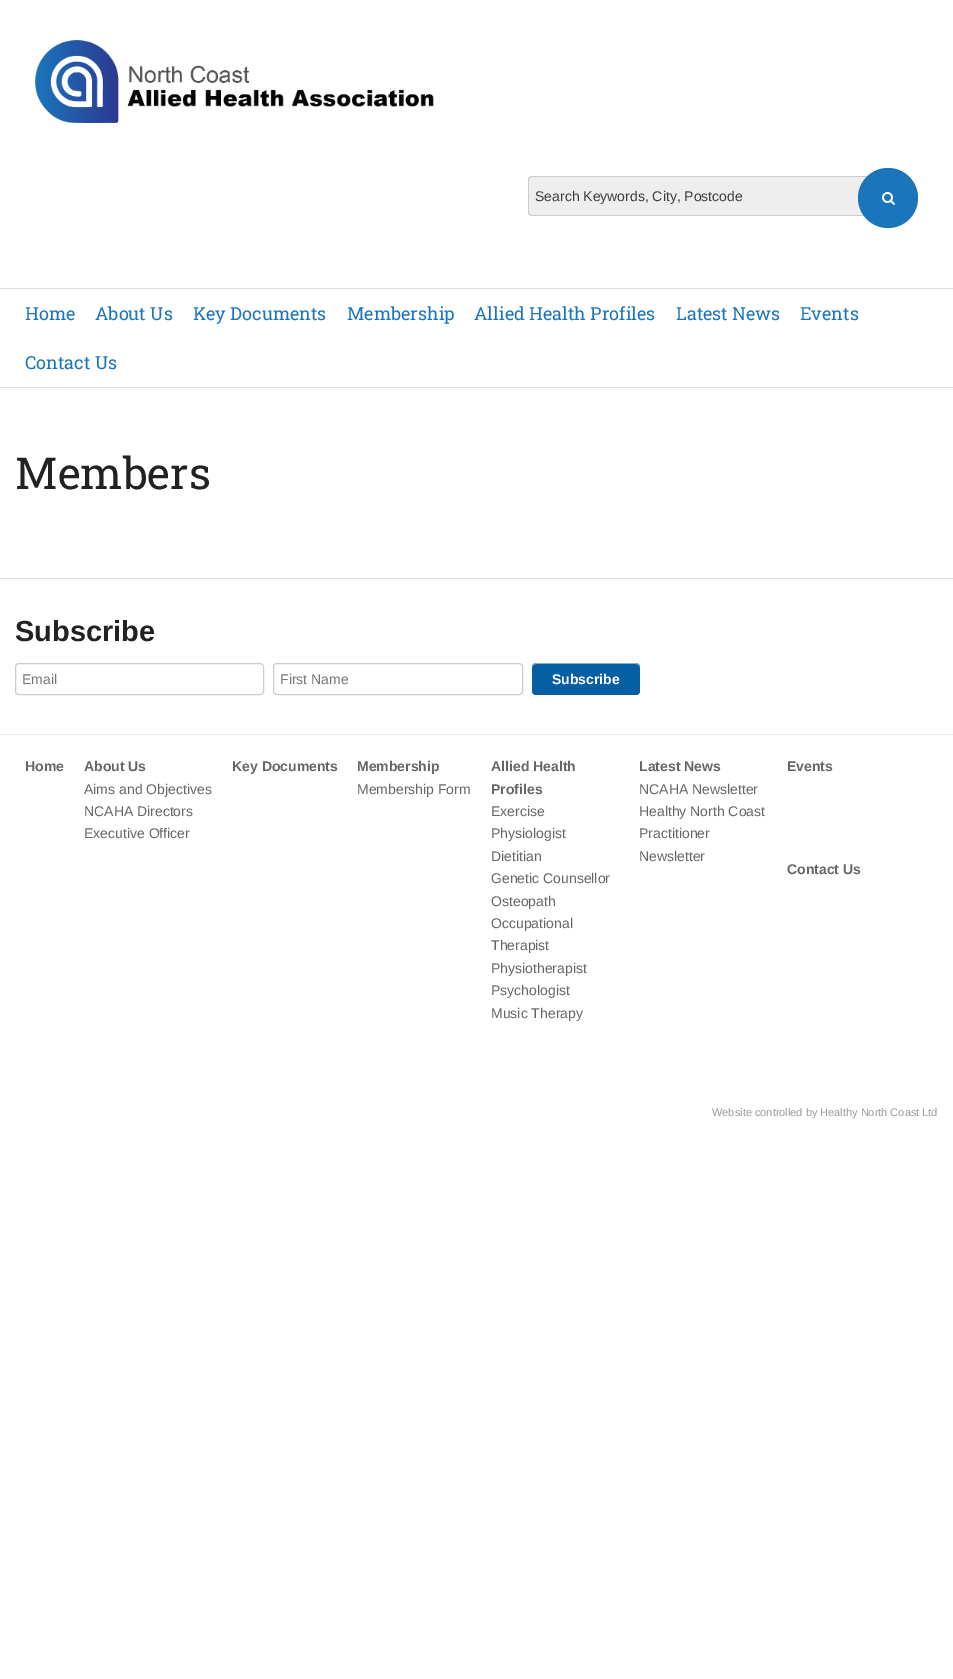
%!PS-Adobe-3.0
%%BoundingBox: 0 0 953 1679
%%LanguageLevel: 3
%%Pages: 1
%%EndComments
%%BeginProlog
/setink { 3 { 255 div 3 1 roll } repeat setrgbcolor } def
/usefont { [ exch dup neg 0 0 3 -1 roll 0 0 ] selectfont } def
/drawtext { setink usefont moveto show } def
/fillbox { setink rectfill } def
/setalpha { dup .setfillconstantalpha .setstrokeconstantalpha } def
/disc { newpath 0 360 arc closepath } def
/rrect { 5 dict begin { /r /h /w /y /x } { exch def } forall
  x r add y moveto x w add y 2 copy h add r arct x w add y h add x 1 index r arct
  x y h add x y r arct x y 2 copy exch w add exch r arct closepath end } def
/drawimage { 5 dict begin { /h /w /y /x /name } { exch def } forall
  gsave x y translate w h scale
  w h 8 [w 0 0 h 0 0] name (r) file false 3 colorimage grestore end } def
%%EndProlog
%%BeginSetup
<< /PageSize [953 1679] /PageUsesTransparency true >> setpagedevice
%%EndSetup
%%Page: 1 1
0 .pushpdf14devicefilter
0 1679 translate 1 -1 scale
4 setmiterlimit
0 0 953 1679 255 255 255 fillbox
(assets/img1.rgb) 35 40 399 83 drawimage
238 238 238 setink
532 177 moveto 888 177 lineto 888 215 lineto 532 215 lineto 530 215 529 214 529 212 curveto 529 180 lineto 529 178 530 177 532 177 curveto closepath fill
204 204 204 setink
532 176 moveto 529 177 lineto 530 178 lineto 532 177 lineto 888 177 lineto 915 176 lineto 914 176 lineto closepath fill
255 255 255 setink
918 212 moveto 918 180 lineto 918 178.5 916.5 176.5 915 176 curveto 888 177 lineto 888 215 lineto 915 216 lineto 916.5 215.5 918 213.5 918 212 curveto closepath fill
204 204 204 setink
532 216 moveto 915 216 lineto 888 215 lineto 532 215 lineto 530 214 lineto 529 215 lineto closepath fill
528 180 moveto 528 212 lineto 528 213 528.5 214 529 215 curveto 530 214 lineto 529 214 529 213 529 212 curveto 529 180 lineto 529 179 529 178 530 178 curveto 529 177 lineto 528.5 178 528 179 528 180 curveto closepath fill
(Search Keywords, City, Postcode) 535 201 /LiberationSans-Regular 14 60 60 60 drawtext
27 117 187 setink
888 198 30 disc fill
(assets/img2.rgb) 882 192 13 13 drawimage
0 288 953 1 221 221 221 fillbox
0 387 953 1 221 221 221 fillbox
(Home) 25 320 /RobotoSlab-Regular 18 27 117 187 drawtext
(About Us) 95 320 /RobotoSlab-Regular 18 27 117 187 drawtext
(Key Documents) 193 320 /RobotoSlab-Regular 18 27 117 187 drawtext
(Membership) 347 320 /RobotoSlab-Regular 18 27 117 187 drawtext
(Allied Health Profiles) 474 320 /RobotoSlab-Regular 18 27 117 187 drawtext
(Latest News) 676 320 /RobotoSlab-Regular 18 27 117 187 drawtext
(Events) 800 320 /RobotoSlab-Regular 18 27 117 187 drawtext
(Contact Us) 25 369 /RobotoSlab-Regular 18 27 117 187 drawtext
(Members) 15 489 /RobotoSlab-Regular 44 34 34 34 drawtext
0 578 953 1 221 221 221 fillbox
(Subscribe) 15 641 /LiberationSans-Bold 29 34 34 34 drawtext
204 204 204 setink
15.5 663.5 248 31 3.5 rrect stroke
(Email) 22 684 /LiberationSans-Regular 14 117 117 117 drawtext
204 204 204 setink
273.5 663.5 249 31 3.5 rrect stroke
(First Name) 280 684 /LiberationSans-Regular 14 117 117 117 drawtext
6 95 163 setink
532 663 108 32 4 rrect fill
0.5 setalpha
255 255 255 setink
536 664 moveto 636 664 lineto 638 664 640 666 640 668 curveto 640 659 623 663 619 663 curveto 553 663 lineto 549 663 532 659 532 668 curveto 532 666 534 664 536 664 curveto closepath fill
1 setalpha
(Subscribe) 552 684 /LiberationSans-Bold 14 255 255 255 drawtext
0 734 953 1 238 238 238 fillbox
(Home) 25 771 /LiberationSans-Bold 14 102 102 102 drawtext
(About Us) 84 771 /LiberationSans-Bold 14 102 102 102 drawtext
(Aims and Objectives) 84 794 /LiberationSans-Regular 14 102 102 102 drawtext
(NCAHA Directors) 84 816 /LiberationSans-Regular 14 102 102 102 drawtext
(Executive Officer) 84 838 /LiberationSans-Regular 14 102 102 102 drawtext
(Key Documents) 232 771 /LiberationSans-Bold 14 102 102 102 drawtext
(Membership) 357 771 /LiberationSans-Bold 14 102 102 102 drawtext
(Membership Form) 357 794 /LiberationSans-Regular 14 102 102 102 drawtext
(Allied Health) 491 771 /LiberationSans-Bold 14 102 102 102 drawtext
(Profiles) 491 794 /LiberationSans-Bold 14 102 102 102 drawtext
(Exercise) 491 816 /LiberationSans-Regular 14 102 102 102 drawtext
(Physiologist) 491 838 /LiberationSans-Regular 14 102 102 102 drawtext
(Dietitian) 491 861 /LiberationSans-Regular 14 102 102 102 drawtext
(Genetic Counsellor) 491 883 /LiberationSans-Regular 14 102 102 102 drawtext
(Osteopath) 491 906 /LiberationSans-Regular 14 102 102 102 drawtext
(Occupational) 491 928 /LiberationSans-Regular 14 102 102 102 drawtext
(Therapist) 491 950 /LiberationSans-Regular 14 102 102 102 drawtext
(Physiotherapist) 491 973 /LiberationSans-Regular 14 102 102 102 drawtext
(Psychologist) 491 995 /LiberationSans-Regular 14 102 102 102 drawtext
(Music Therapy) 491 1018 /LiberationSans-Regular 14 102 102 102 drawtext
(Latest News) 639 771 /LiberationSans-Bold 14 102 102 102 drawtext
(NCAHA Newsletter) 639 794 /LiberationSans-Regular 14 102 102 102 drawtext
(Healthy North Coast) 639 816 /LiberationSans-Regular 14 102 102 102 drawtext
(Practitioner) 639 838 /LiberationSans-Regular 14 102 102 102 drawtext
(Newsletter) 639 861 /LiberationSans-Regular 14 102 102 102 drawtext
(Events) 787 771 /LiberationSans-Bold 14 102 102 102 drawtext
(Contact Us) 787 874 /LiberationSans-Bold 14 102 102 102 drawtext
(Website controlled by Healthy North Coast Ltd) 712 1116 /LiberationSans-Regular 11 153 153 153 drawtext
.poppdf14devicefilter showpage
%%EOF
